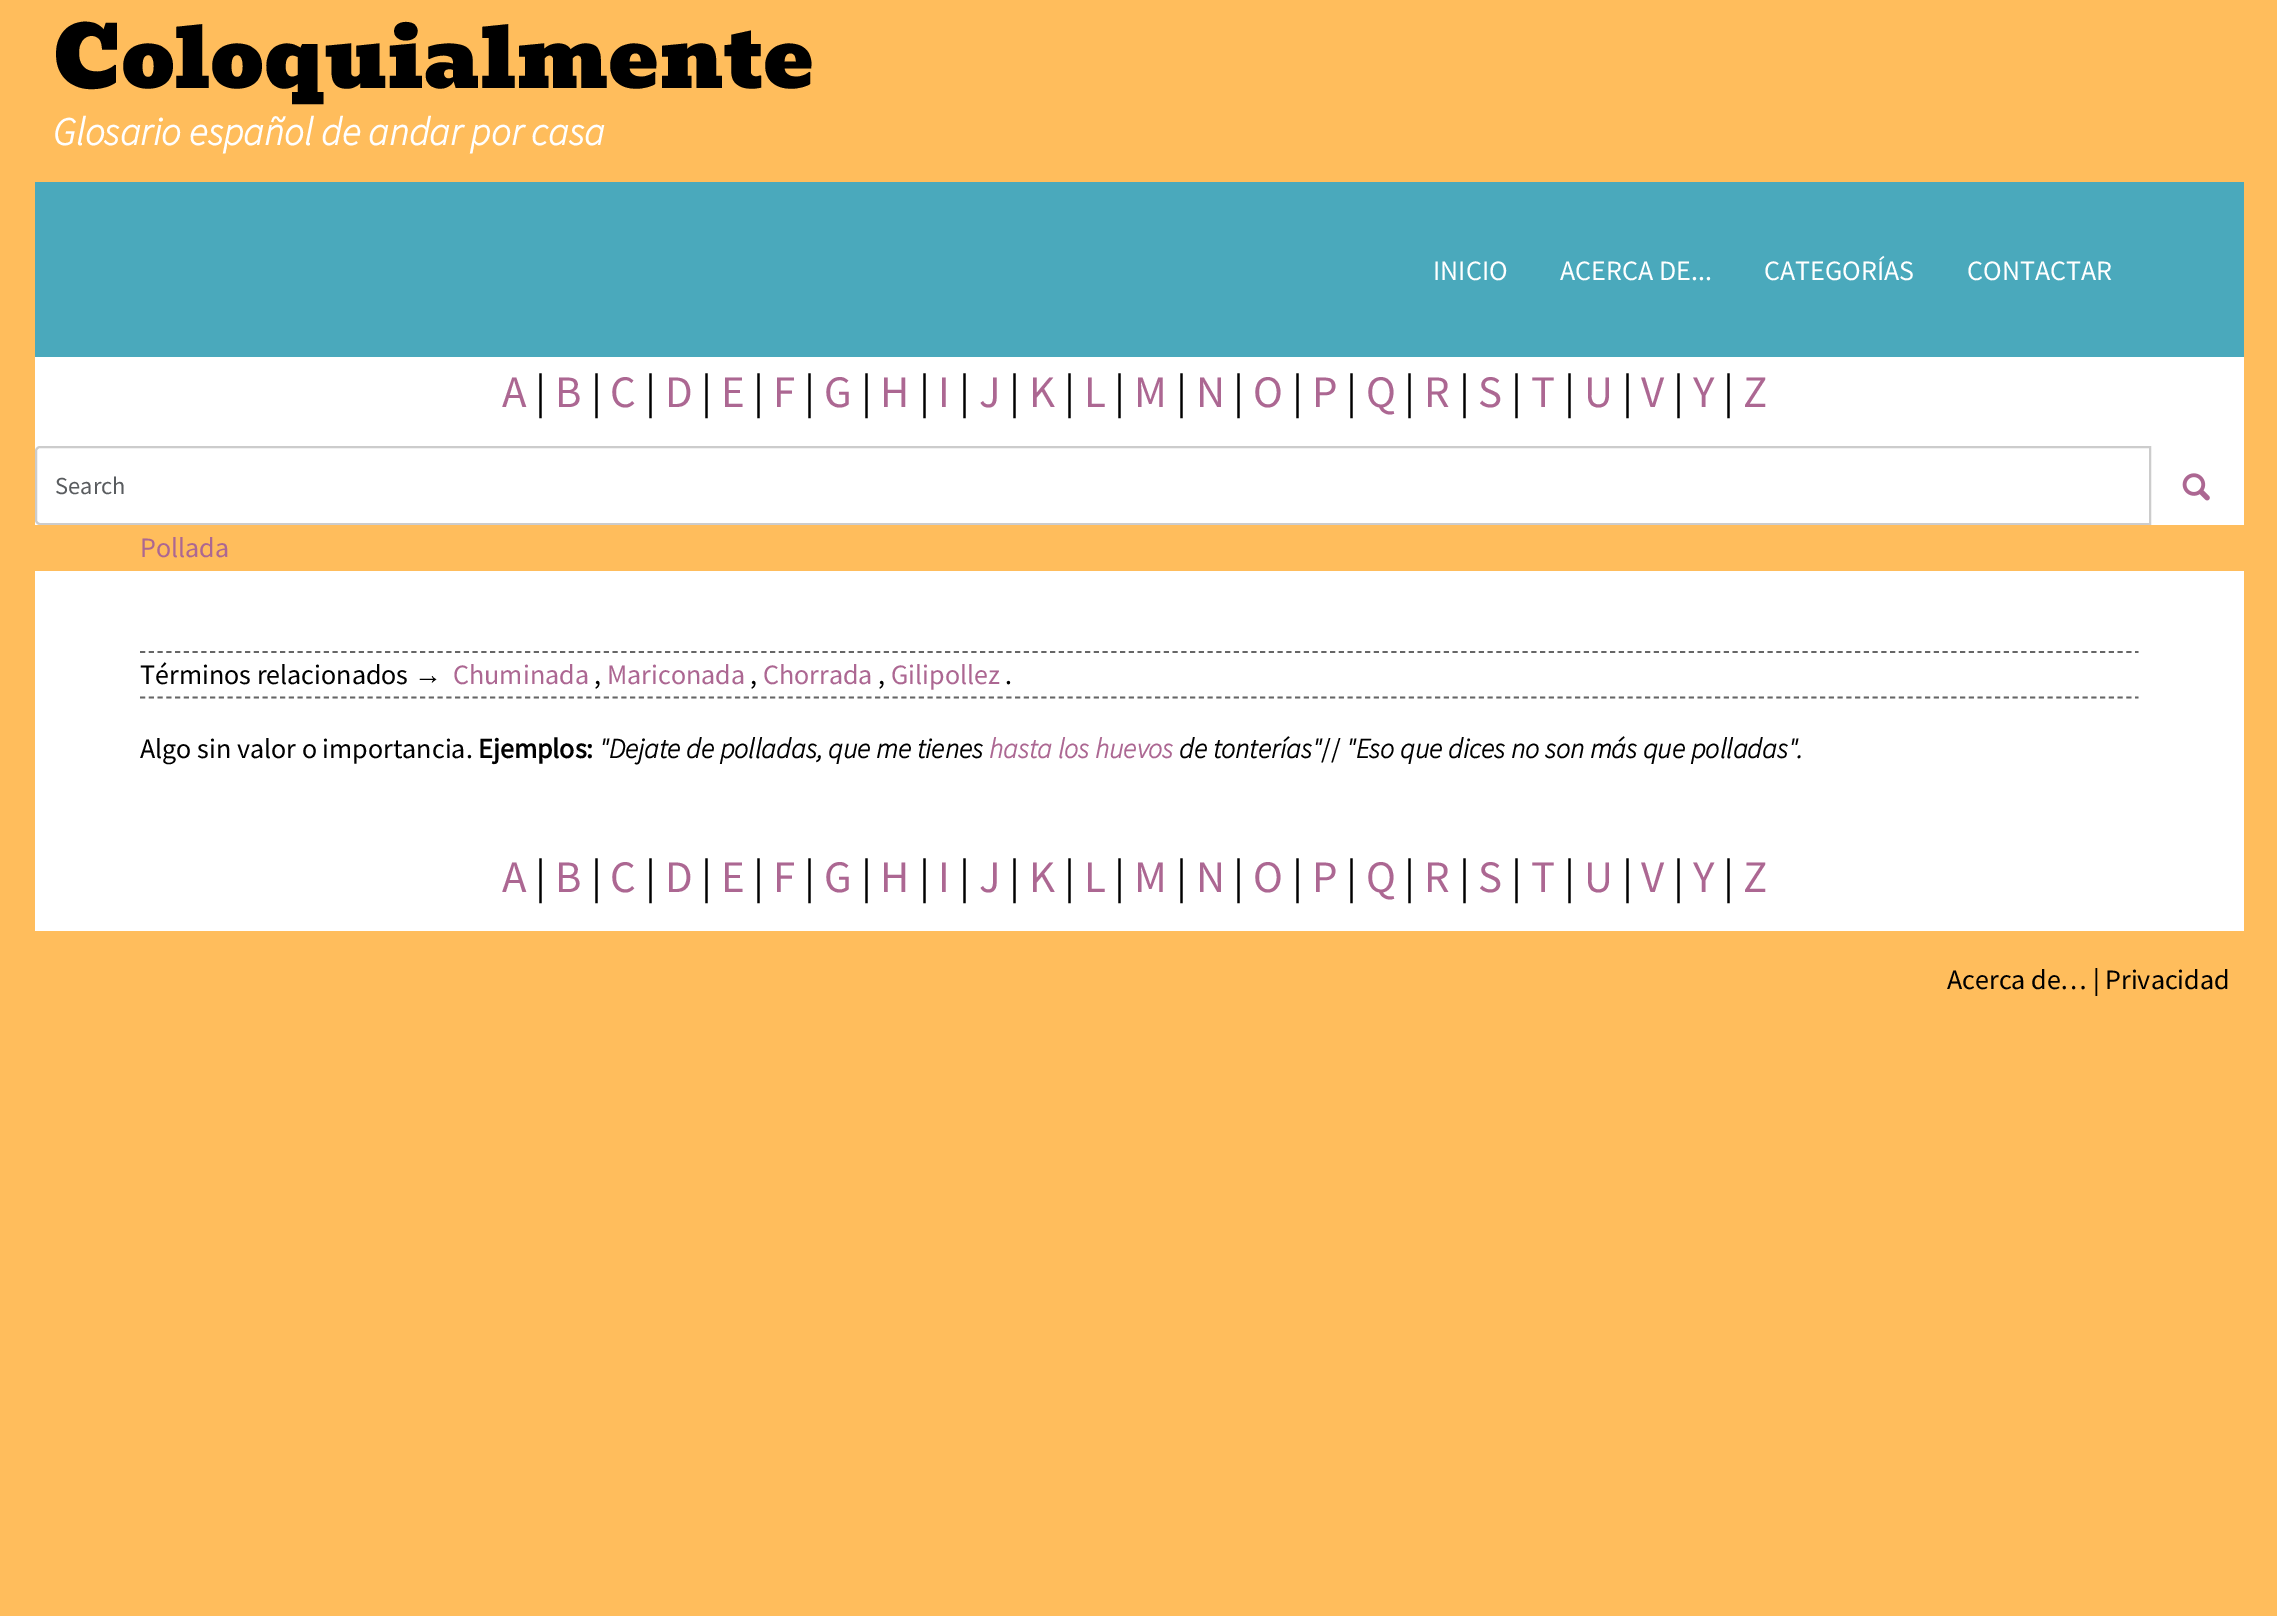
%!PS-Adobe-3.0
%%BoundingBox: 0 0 2277 1616
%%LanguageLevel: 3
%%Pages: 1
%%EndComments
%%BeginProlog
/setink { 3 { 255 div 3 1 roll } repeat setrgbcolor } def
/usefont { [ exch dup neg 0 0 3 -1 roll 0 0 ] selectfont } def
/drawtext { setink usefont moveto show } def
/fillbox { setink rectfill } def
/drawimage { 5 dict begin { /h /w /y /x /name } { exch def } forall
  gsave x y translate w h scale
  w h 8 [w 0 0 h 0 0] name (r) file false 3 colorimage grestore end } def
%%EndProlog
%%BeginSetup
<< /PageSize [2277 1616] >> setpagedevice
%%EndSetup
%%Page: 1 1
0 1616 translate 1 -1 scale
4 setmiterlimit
0 0 2277 1616 255 189 92 fillbox
35 357 2209 574 255 255 255 fillbox
(Coloquialmente) 53 88 /Bevan-Regular 84 0 0 0 drawtext
(Glosario español de andar por casa) 53 145 /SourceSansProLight-BoldItalic 39.25 255 255 255 drawtext
35 182 2209 175 74 169 188 fillbox
(INICIO) 1433 280 /SourceSansPro-Regular 28 255 255 255 drawtext
(ACERCA DE...) 1560 280 /SourceSansPro-Regular 28 255 255 255 drawtext
(CATEGORÍAS) 1764 280 /SourceSansPro-Regular 28 255 255 255 drawtext
(CONTACTAR) 1967 280 /SourceSansPro-Regular 28 255 255 255 drawtext
(A) 502 407 /SourceSansPro-Regular 45 172 103 146 drawtext
(|) 535 407 /SourceSansPro-Regular 45 0 0 0 drawtext
(B) 555 407 /SourceSansPro-Regular 45 172 103 146 drawtext
(|) 591 407 /SourceSansPro-Regular 45 0 0 0 drawtext
(C) 610 407 /SourceSansPro-Regular 45 172 103 146 drawtext
(|) 645 407 /SourceSansPro-Regular 45 0 0 0 drawtext
(D) 665 407 /SourceSansPro-Regular 45 172 103 146 drawtext
(|) 701 407 /SourceSansPro-Regular 45 0 0 0 drawtext
(E) 721 407 /SourceSansPro-Regular 45 172 103 146 drawtext
(|) 753 407 /SourceSansPro-Regular 45 0 0 0 drawtext
(F) 773 407 /SourceSansPro-Regular 45 172 103 146 drawtext
(|) 804 407 /SourceSansPro-Regular 45 0 0 0 drawtext
(G) 824 407 /SourceSansPro-Regular 45 172 103 146 drawtext
(|) 861 407 /SourceSansPro-Regular 45 0 0 0 drawtext
(H) 880 407 /SourceSansPro-Regular 45 172 103 146 drawtext
(|) 919 407 /SourceSansPro-Regular 45 0 0 0 drawtext
(I) 938 407 /SourceSansPro-Regular 45 172 103 146 drawtext
(|) 959 407 /SourceSansPro-Regular 45 0 0 0 drawtext
(J) 979 407 /SourceSansPro-Regular 45 172 103 146 drawtext
(|) 1009 407 /SourceSansPro-Regular 45 0 0 0 drawtext
(K) 1029 407 /SourceSansPro-Regular 45 172 103 146 drawtext
(|) 1064 407 /SourceSansPro-Regular 45 0 0 0 drawtext
(L) 1084 407 /SourceSansPro-Regular 45 172 103 146 drawtext
(|) 1114 407 /SourceSansPro-Regular 45 0 0 0 drawtext
(M) 1134 407 /SourceSansPro-Regular 45 172 103 146 drawtext
(|) 1176 407 /SourceSansPro-Regular 45 0 0 0 drawtext
(N) 1196 407 /SourceSansPro-Regular 45 172 103 146 drawtext
(|) 1233 407 /SourceSansPro-Regular 45 0 0 0 drawtext
(O) 1253 407 /SourceSansPro-Regular 45 172 103 146 drawtext
(|) 1292 407 /SourceSansPro-Regular 45 0 0 0 drawtext
(P) 1312 407 /SourceSansPro-Regular 45 172 103 146 drawtext
(|) 1346 407 /SourceSansPro-Regular 45 0 0 0 drawtext
(Q) 1366 407 /SourceSansPro-Regular 45 172 103 146 drawtext
(|) 1404 407 /SourceSansPro-Regular 45 0 0 0 drawtext
(R) 1424 407 /SourceSansPro-Regular 45 172 103 146 drawtext
(|) 1459 407 /SourceSansPro-Regular 45 0 0 0 drawtext
(S) 1478 407 /SourceSansPro-Regular 45 172 103 146 drawtext
(|) 1511 407 /SourceSansPro-Regular 45 0 0 0 drawtext
(T) 1531 407 /SourceSansPro-Regular 45 172 103 146 drawtext
(|) 1564 407 /SourceSansPro-Regular 45 0 0 0 drawtext
(U) 1584 407 /SourceSansPro-Regular 45 172 103 146 drawtext
(|) 1622 407 /SourceSansPro-Regular 45 0 0 0 drawtext
(V) 1641 407 /SourceSansPro-Regular 45 172 103 146 drawtext
(|) 1673 407 /SourceSansPro-Regular 45 0 0 0 drawtext
(Y) 1693 407 /SourceSansPro-Regular 45 172 103 146 drawtext
(|) 1723 407 /SourceSansPro-Regular 45 0 0 0 drawtext
(Z) 1743 407 /SourceSansPro-Regular 45 172 103 146 drawtext
204 204 204 setink
2 setlinewidth
40 447 moveto 2150 447 lineto 2150 524 lineto 40 524 lineto 38 524 36 522 36 520 curveto 36 451 lineto 36 449 38 447 40 447 curveto closepath stroke
(Search) 55 494 /SourceSansPro-Regular 24.5 89 92 95 drawtext
(assets/img1.rgb) 2182 473 28 28 drawimage
35 525 2209 46 255 189 92 fillbox
(Pollada) 140 557 /SourceSansPro-Regular 28 172 103 146 drawtext
102 102 102 setink
1.8 setlinewidth
[5.25 3.5] 0 setdash
140 652 moveto 2138.5 652 lineto stroke
140 697.5 moveto 2138.5 697.5 lineto stroke
(Términos relacionados) 140 684 /SourceSansPro-Regular 28 0 0 0 drawtext
(→) 414 684 /LiberationSerif-Regular 28 0 0 0 drawtext
(Chuminada) 453 684 /SourceSansPro-Regular 28 172 103 146 drawtext
(,) 594 684 /SourceSansPro-Regular 28 0 0 0 drawtext
(Mariconada) 607 684 /SourceSansPro-Regular 28 172 103 146 drawtext
(,) 750 684 /SourceSansPro-Regular 28 0 0 0 drawtext
(Chorrada) 763 684 /SourceSansPro-Regular 28 172 103 146 drawtext
(,) 878 684 /SourceSansPro-Regular 28 0 0 0 drawtext
(Gilipollez) 891 684 /SourceSansPro-Regular 28 172 103 146 drawtext
(.) 1005 684 /SourceSansPro-Regular 28 0 0 0 drawtext
(Algo sin valor o importancia.) 140 758 /SourceSansPro-Regular 28 0 0 0 drawtext
(Ejemplos:) 478 758 /SourceSansPro-Bold 28 0 0 0 drawtext
("Dejate de polladas, que me tienes) 599 758 /SourceSansProLight-BoldItalic 28 0 0 0 drawtext
(hasta los huevos) 989 758 /SourceSansProLight-BoldItalic 28 172 103 146 drawtext
(de tonterías") 1179 758 /SourceSansProLight-BoldItalic 28 0 0 0 drawtext
(//) 1321 758 /SourceSansPro-Regular 28 0 0 0 drawtext
("Eso que dices no son más que polladas".) 1346 758 /SourceSansProLight-BoldItalic 28 0 0 0 drawtext
(A) 502 892 /SourceSansPro-Regular 45 172 103 146 drawtext
(|) 535 892 /SourceSansPro-Regular 45 0 0 0 drawtext
(B) 555 892 /SourceSansPro-Regular 45 172 103 146 drawtext
(|) 591 892 /SourceSansPro-Regular 45 0 0 0 drawtext
(C) 610 892 /SourceSansPro-Regular 45 172 103 146 drawtext
(|) 645 892 /SourceSansPro-Regular 45 0 0 0 drawtext
(D) 665 892 /SourceSansPro-Regular 45 172 103 146 drawtext
(|) 701 892 /SourceSansPro-Regular 45 0 0 0 drawtext
(E) 721 892 /SourceSansPro-Regular 45 172 103 146 drawtext
(|) 753 892 /SourceSansPro-Regular 45 0 0 0 drawtext
(F) 773 892 /SourceSansPro-Regular 45 172 103 146 drawtext
(|) 804 892 /SourceSansPro-Regular 45 0 0 0 drawtext
(G) 824 892 /SourceSansPro-Regular 45 172 103 146 drawtext
(|) 861 892 /SourceSansPro-Regular 45 0 0 0 drawtext
(H) 880 892 /SourceSansPro-Regular 45 172 103 146 drawtext
(|) 919 892 /SourceSansPro-Regular 45 0 0 0 drawtext
(I) 938 892 /SourceSansPro-Regular 45 172 103 146 drawtext
(|) 959 892 /SourceSansPro-Regular 45 0 0 0 drawtext
(J) 979 892 /SourceSansPro-Regular 45 172 103 146 drawtext
(|) 1009 892 /SourceSansPro-Regular 45 0 0 0 drawtext
(K) 1029 892 /SourceSansPro-Regular 45 172 103 146 drawtext
(|) 1064 892 /SourceSansPro-Regular 45 0 0 0 drawtext
(L) 1084 892 /SourceSansPro-Regular 45 172 103 146 drawtext
(|) 1114 892 /SourceSansPro-Regular 45 0 0 0 drawtext
(M) 1134 892 /SourceSansPro-Regular 45 172 103 146 drawtext
(|) 1176 892 /SourceSansPro-Regular 45 0 0 0 drawtext
(N) 1196 892 /SourceSansPro-Regular 45 172 103 146 drawtext
(|) 1233 892 /SourceSansPro-Regular 45 0 0 0 drawtext
(O) 1253 892 /SourceSansPro-Regular 45 172 103 146 drawtext
(|) 1292 892 /SourceSansPro-Regular 45 0 0 0 drawtext
(P) 1312 892 /SourceSansPro-Regular 45 172 103 146 drawtext
(|) 1346 892 /SourceSansPro-Regular 45 0 0 0 drawtext
(Q) 1366 892 /SourceSansPro-Regular 45 172 103 146 drawtext
(|) 1404 892 /SourceSansPro-Regular 45 0 0 0 drawtext
(R) 1424 892 /SourceSansPro-Regular 45 172 103 146 drawtext
(|) 1459 892 /SourceSansPro-Regular 45 0 0 0 drawtext
(S) 1478 892 /SourceSansPro-Regular 45 172 103 146 drawtext
(|) 1511 892 /SourceSansPro-Regular 45 0 0 0 drawtext
(T) 1531 892 /SourceSansPro-Regular 45 172 103 146 drawtext
(|) 1564 892 /SourceSansPro-Regular 45 0 0 0 drawtext
(U) 1584 892 /SourceSansPro-Regular 45 172 103 146 drawtext
(|) 1622 892 /SourceSansPro-Regular 45 0 0 0 drawtext
(V) 1641 892 /SourceSansPro-Regular 45 172 103 146 drawtext
(|) 1673 892 /SourceSansPro-Regular 45 0 0 0 drawtext
(Y) 1693 892 /SourceSansPro-Regular 45 172 103 146 drawtext
(|) 1723 892 /SourceSansPro-Regular 45 0 0 0 drawtext
(Z) 1743 892 /SourceSansPro-Regular 45 172 103 146 drawtext
(Acerca de… | Privacidad) 1947 989 /SourceSansPro-Regular 28 0 0 0 drawtext
showpage
%%EOF
